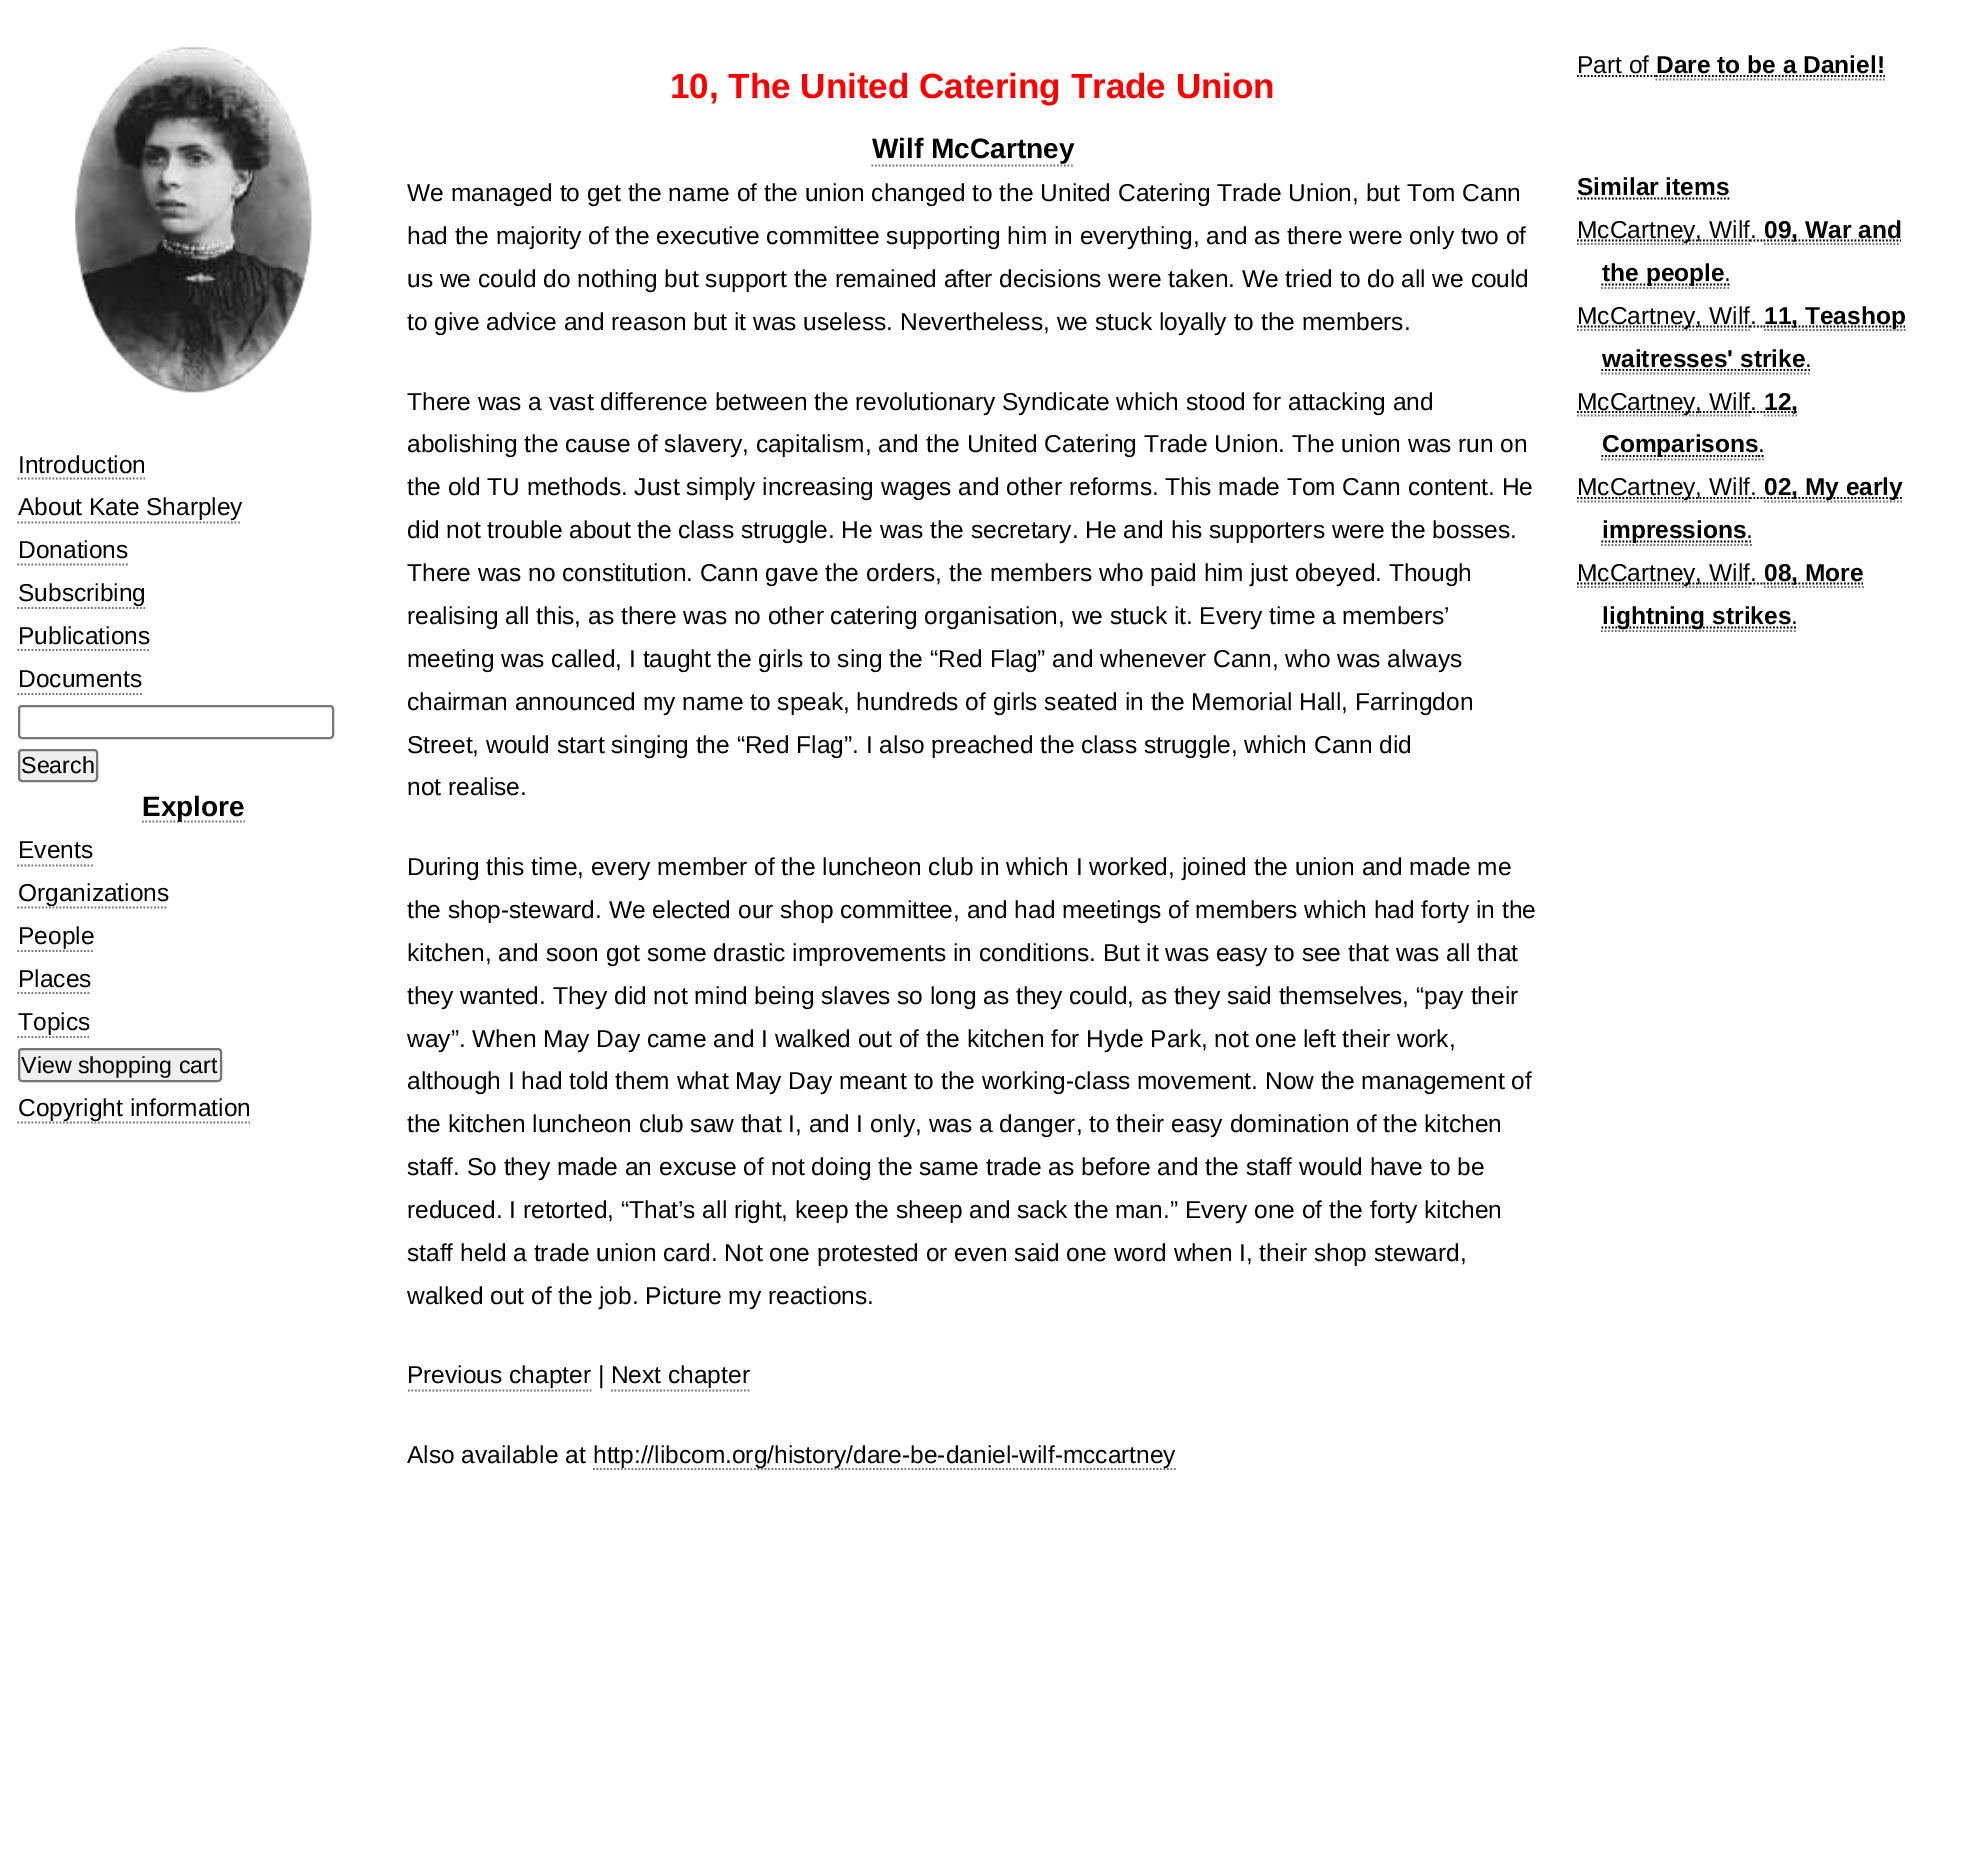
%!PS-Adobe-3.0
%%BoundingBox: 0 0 1983 1858
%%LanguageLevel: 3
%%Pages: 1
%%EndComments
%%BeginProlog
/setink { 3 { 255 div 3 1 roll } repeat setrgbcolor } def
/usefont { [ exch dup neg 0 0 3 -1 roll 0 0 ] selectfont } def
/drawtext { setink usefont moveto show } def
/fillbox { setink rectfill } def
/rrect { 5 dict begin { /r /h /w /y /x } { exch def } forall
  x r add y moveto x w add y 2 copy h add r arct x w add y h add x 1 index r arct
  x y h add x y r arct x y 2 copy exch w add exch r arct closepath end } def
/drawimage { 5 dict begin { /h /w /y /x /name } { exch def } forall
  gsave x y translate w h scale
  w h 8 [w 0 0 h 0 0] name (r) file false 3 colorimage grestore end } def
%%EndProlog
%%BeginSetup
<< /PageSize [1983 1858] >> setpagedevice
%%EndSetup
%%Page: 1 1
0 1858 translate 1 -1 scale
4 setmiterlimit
0 0 1983 1858 255 255 255 fillbox
(assets/img1.rgb) 75 46 237 347 drawimage
(Introduction) 18 473 /LiberationSans-Regular 24.5 0 0 0 drawtext
119 119 119 setink
1.8 setlinewidth
[1.75 1.75] 0 setdash
17.5 478.5 moveto 145 478.5 lineto stroke
(About Kate Sharpley) 18 515 /LiberationSans-Regular 24.5 0 0 0 drawtext
119 119 119 setink
17.5 522.5 moveto 241.5 522.5 lineto stroke
(Donations) 18 558 /LiberationSans-Regular 24.5 0 0 0 drawtext
119 119 119 setink
17.5 564.5 moveto 128 564.5 lineto stroke
(Subscribing) 18 601 /LiberationSans-Regular 24.5 0 0 0 drawtext
119 119 119 setink
17.5 608 moveto 145 608 lineto stroke
(Publications) 18 644 /LiberationSans-Regular 24.5 0 0 0 drawtext
119 119 119 setink
17.5 650 moveto 150.5 650 lineto stroke
(Documents) 18 687 /LiberationSans-Regular 24.5 0 0 0 drawtext
119 119 119 setink
17.5 694 moveto 142 694 lineto stroke
118 118 118 setink
2 setlinewidth
[] 0 setdash
19 706 314 32 3 rrect stroke
239 239 239 setink
19 750 78 31 3 rrect gsave fill grestore
118 118 118 setink
stroke
(Search) 21 773 /LiberationSans-Regular 23.25 0 0 0 drawtext
119 119 119 setink
1.8 setlinewidth
[1.75 1.75] 0 setdash
142 821.5 moveto 245 821.5 lineto stroke
(Explore) 142 816 /LiberationSans-Bold 28 0 0 0 drawtext
(Events) 18 858 /LiberationSans-Regular 24.5 0 0 0 drawtext
119 119 119 setink
17.5 865.5 moveto 93 865.5 lineto stroke
17.5 907.5 moveto 168 907.5 lineto stroke
(Organizations) 18 901 /LiberationSans-Regular 24.5 0 0 0 drawtext
(People) 18 944 /LiberationSans-Regular 24.5 0 0 0 drawtext
119 119 119 setink
17.5 951 moveto 94.5 951 lineto stroke
(Places) 18 987 /LiberationSans-Regular 24.5 0 0 0 drawtext
119 119 119 setink
17.5 993 moveto 91 993 lineto stroke
(Topics) 18 1030 /LiberationSans-Regular 24.5 0 0 0 drawtext
119 119 119 setink
17.5 1037 moveto 89 1037 lineto stroke
239 239 239 setink
19 1049 202 32 3 rrect gsave fill grestore
118 118 118 setink
2 setlinewidth
[] 0 setdash
stroke
(View shopping cart) 21 1073 /LiberationSans-Regular 23.25 0 0 0 drawtext
119 119 119 setink
1.8 setlinewidth
[1.75 1.75] 0 setdash
17.5 1122.5 moveto 250 1122.5 lineto stroke
(Copyright information) 18 1116 /LiberationSans-Regular 24.5 0 0 0 drawtext
(10, The United Catering Trade Union) 670 98 /LiberationSans-Bold 35 255 0 0 drawtext
(Wilf McCartney) 872 158 /LiberationSans-Bold 28 0 0 0 drawtext
119 119 119 setink
871.5 165.5 moveto 1074.5 165.5 lineto stroke
(We managed to get the name of the union changed to the United Catering Trade Union, but Tom Cann) 407 201 /LiberationSans-Regular 24.5 0 0 0 drawtext
(had the majority of the executive committee supporting him in everything, and as there were only two of) 407 244 /LiberationSans-Regular 24.5 0 0 0 drawtext
(us we could do nothing but support the remained after decisions were taken. We tried to do all we could) 407 287 /LiberationSans-Regular 24.5 0 0 0 drawtext
(to give advice and reason but it was useless. Nevertheless, we stuck loyally to the members.) 407 330 /LiberationSans-Regular 24.5 0 0 0 drawtext
(There was a vast difference between the revolutionary Syndicate which stood for attacking and) 407 410 /LiberationSans-Regular 24.5 0 0 0 drawtext
(abolishing the cause of slavery, capitalism, and the United Catering Trade Union. The union was run on) 407 452 /LiberationSans-Regular 24.5 0 0 0 drawtext
(the old TU methods. Just simply increasing wages and other reforms. This made Tom Cann content. He) 407 495 /LiberationSans-Regular 24.5 0 0 0 drawtext
(did not trouble about the class struggle. He was the secretary. He and his supporters were the bosses.) 407 538 /LiberationSans-Regular 24.5 0 0 0 drawtext
(There was no constitution. Cann gave the orders, the members who paid him just obeyed. Though) 407 581 /LiberationSans-Regular 24.5 0 0 0 drawtext
(realising all this, as there was no other catering organisation, we stuck it. Every time a members’) 407 624 /LiberationSans-Regular 24.5 0 0 0 drawtext
(meeting was called, I taught the girls to sing the “Red Flag” and whenever Cann, who was always) 407 667 /LiberationSans-Regular 24.5 0 0 0 drawtext
(chairman announced my name to speak, hundreds of girls seated in the Memorial Hall, Farringdon) 407 710 /LiberationSans-Regular 24.5 0 0 0 drawtext
(Street, would start singing the “Red Flag”. I also preached the class struggle, which Cann did) 407 753 /LiberationSans-Regular 24.5 0 0 0 drawtext
(not realise.) 407 795 /LiberationSans-Regular 24.5 0 0 0 drawtext
(During this time, every member of the luncheon club in which I worked, joined the union and made me) 407 875 /LiberationSans-Regular 24.5 0 0 0 drawtext
(the shop-steward. We elected our shop committee, and had meetings of members which had forty in the) 407 918 /LiberationSans-Regular 24.5 0 0 0 drawtext
(kitchen, and soon got some drastic improvements in conditions. But it was easy to see that was all that) 407 961 /LiberationSans-Regular 24.5 0 0 0 drawtext
(they wanted. They did not mind being slaves so long as they could, as they said themselves, “pay their) 407 1004 /LiberationSans-Regular 24.5 0 0 0 drawtext
(way”. When May Day came and I walked out of the kitchen for Hyde Park, not one left their work,) 407 1047 /LiberationSans-Regular 24.5 0 0 0 drawtext
(although I had told them what May Day meant to the working-class movement. Now the management of) 407 1089 /LiberationSans-Regular 24.5 0 0 0 drawtext
(the kitchen luncheon club saw that I, and I only, was a danger, to their easy domination of the kitchen) 407 1132 /LiberationSans-Regular 24.5 0 0 0 drawtext
(staff. So they made an excuse of not doing the same trade as before and the staff would have to be) 407 1175 /LiberationSans-Regular 24.5 0 0 0 drawtext
(reduced. I retorted, “That’s all right, keep the sheep and sack the man.” Every one of the forty kitchen) 407 1218 /LiberationSans-Regular 24.5 0 0 0 drawtext
(staff held a trade union card. Not one protested or even said one word when I, their shop steward,) 407 1261 /LiberationSans-Regular 24.5 0 0 0 drawtext
(walked out of the job. Picture my reactions.) 407 1304 /LiberationSans-Regular 24.5 0 0 0 drawtext
(Previous chapter | Next chapter) 407 1383 /LiberationSans-Regular 24.5 0 0 0 drawtext
119 119 119 setink
408 1390.5 moveto 591.5 1390.5 lineto stroke
611 1390.5 moveto 751 1390.5 lineto stroke
(Also available at) 407 1463 /LiberationSans-Regular 24.5 0 0 0 drawtext
119 119 119 setink
593 1469 moveto 1176 1469 lineto stroke
(http://libcom.org/history/dare-be-daniel-wilf-mccartney) 593 1463 /LiberationSans-Regular 24.5 0 0 0 drawtext
(Part of) 1577 73 /LiberationSans-Regular 24.5 0 0 0 drawtext
1577 76 moveto 1656 76 lineto stroke
(Dare to be a Daniel!) 1656 73 /LiberationSans-Bold 24.5 0 0 0 drawtext
119 119 119 setink
1655.5 79.5 moveto 1885 79.5 lineto stroke
0 0 0 setink
1656 76 moveto 1885 76 lineto stroke
(Similar items) 1577 195 /LiberationSans-Bold 24.5 0 0 0 drawtext
1577 198.5 moveto 1729.5 198.5 lineto stroke
119 119 119 setink
1577 244 moveto 1750 244 lineto stroke
0 0 0 setink
1577 240.5 moveto 1750 240.5 lineto stroke
(McCartney, Wilf.) 1577 238 /LiberationSans-Regular 24.5 0 0 0 drawtext
1750 240.5 moveto 1763.5 240.5 lineto stroke
1763.5 240.5 moveto 1901 240.5 lineto stroke
(09, War and) 1764 238 /LiberationSans-Bold 24.5 0 0 0 drawtext
119 119 119 setink
1764 244 moveto 1900.5 244 lineto stroke
0 0 0 setink
1601.5 284.5 moveto 1724 284.5 lineto stroke
(the people) 1602 281 /LiberationSans-Bold 24.5 0 0 0 drawtext
(.) 1724 281 /LiberationSans-Regular 24.5 0 0 0 drawtext
119 119 119 setink
1601 288 moveto 1724 288 lineto stroke
[] 0 setdash
1724 288 moveto 1725.5 288 lineto 1727.5 288 moveto 1729 288 lineto stroke
0 0 0 setink
1724 284.5 moveto 1726 284.5 lineto 1727.5 284.5 moveto 1729.5 284.5 lineto stroke
119 119 119 setink
[1.75 1.75] 0 setdash
1577 330 moveto 1750 330 lineto stroke
0 0 0 setink
1577 326.5 moveto 1750 326.5 lineto stroke
(McCartney, Wilf.) 1577 324 /LiberationSans-Regular 24.5 0 0 0 drawtext
1750 326.5 moveto 1763.5 326.5 lineto stroke
119 119 119 setink
1764 330 moveto 1906 330 lineto stroke
0 0 0 setink
1763.5 326.5 moveto 1905 326.5 lineto stroke
(11, Teashop) 1764 324 /LiberationSans-Bold 24.5 0 0 0 drawtext
(waitresses' strike) 1602 367 /LiberationSans-Bold 24.5 0 0 0 drawtext
(.) 1805 367 /LiberationSans-Regular 24.5 0 0 0 drawtext
119 119 119 setink
1601 373.5 moveto 1804 373.5 lineto stroke
[] 0 setdash
1804 373.5 moveto 1806 373.5 lineto 1808 373.5 moveto 1809.5 373.5 lineto stroke
0 0 0 setink
[1.75 1.75] 0 setdash
1601.5 370 moveto 1805 370 lineto stroke
[] 0 setdash
1805 370 moveto 1806.5 370 lineto 1808.5 370 moveto 1810 370 lineto stroke
119 119 119 setink
[1.75 1.75] 0 setdash
1577 415.5 moveto 1750 415.5 lineto stroke
0 0 0 setink
1577 412 moveto 1750 412 lineto stroke
(McCartney, Wilf.) 1577 410 /LiberationSans-Regular 24.5 0 0 0 drawtext
1750 412 moveto 1763.5 412 lineto stroke
1763.5 412 moveto 1797.5 412 lineto stroke
(12,) 1764 410 /LiberationSans-Bold 24.5 0 0 0 drawtext
119 119 119 setink
1764 415.5 moveto 1797 415.5 lineto stroke
0 0 0 setink
1601.5 456 moveto 1758 456 lineto stroke
(Comparisons) 1602 452 /LiberationSans-Bold 24.5 0 0 0 drawtext
(.) 1758 452 /LiberationSans-Regular 24.5 0 0 0 drawtext
119 119 119 setink
1601 459.5 moveto 1759 459.5 lineto stroke
[] 0 setdash
1759 459.5 moveto 1760.5 459.5 lineto 1762.5 459.5 moveto 1764 459.5 lineto stroke
0 0 0 setink
1758 456 moveto 1760 456 lineto 1761.5 456 moveto 1763.5 456 lineto stroke
119 119 119 setink
[1.75 1.75] 0 setdash
1577 501.5 moveto 1750 501.5 lineto stroke
0 0 0 setink
1577 498 moveto 1750 498 lineto stroke
(McCartney, Wilf.) 1577 495 /LiberationSans-Regular 24.5 0 0 0 drawtext
1750 498 moveto 1763.5 498 lineto stroke
119 119 119 setink
1764 501.5 moveto 1902 501.5 lineto stroke
0 0 0 setink
1763.5 498 moveto 1902.5 498 lineto stroke
(02, My early) 1764 495 /LiberationSans-Bold 24.5 0 0 0 drawtext
1601.5 541.5 moveto 1746 541.5 lineto stroke
(impressions) 1602 538 /LiberationSans-Bold 24.5 0 0 0 drawtext
(.) 1746 538 /LiberationSans-Regular 24.5 0 0 0 drawtext
119 119 119 setink
1601 545 moveto 1746.5 545 lineto stroke
[] 0 setdash
1746.5 545 moveto 1748 545 lineto 1750 545 moveto 1752 545 lineto stroke
0 0 0 setink
1746 541.5 moveto 1747.5 541.5 lineto 1749.5 541.5 moveto 1751 541.5 lineto stroke
119 119 119 setink
[1.75 1.75] 0 setdash
1577 587 moveto 1750 587 lineto stroke
0 0 0 setink
1577 583.5 moveto 1750 583.5 lineto stroke
(McCartney, Wilf.) 1577 581 /LiberationSans-Regular 24.5 0 0 0 drawtext
1750 583.5 moveto 1763.5 583.5 lineto stroke
1763.5 583.5 moveto 1863 583.5 lineto stroke
(08, More) 1764 581 /LiberationSans-Bold 24.5 0 0 0 drawtext
119 119 119 setink
1764 587 moveto 1864 587 lineto stroke
0 0 0 setink
1601.5 627.5 moveto 1790.5 627.5 lineto stroke
(lightning strikes) 1602 624 /LiberationSans-Bold 24.5 0 0 0 drawtext
(.) 1791 624 /LiberationSans-Regular 24.5 0 0 0 drawtext
119 119 119 setink
1601 631 moveto 1790 631 lineto stroke
[] 0 setdash
1790 631 moveto 1792 631 lineto 1794 631 moveto 1795.5 631 lineto stroke
0 0 0 setink
1790.5 627.5 moveto 1792.5 627.5 lineto 1794 627.5 moveto 1796 627.5 lineto stroke
showpage
%%EOF
